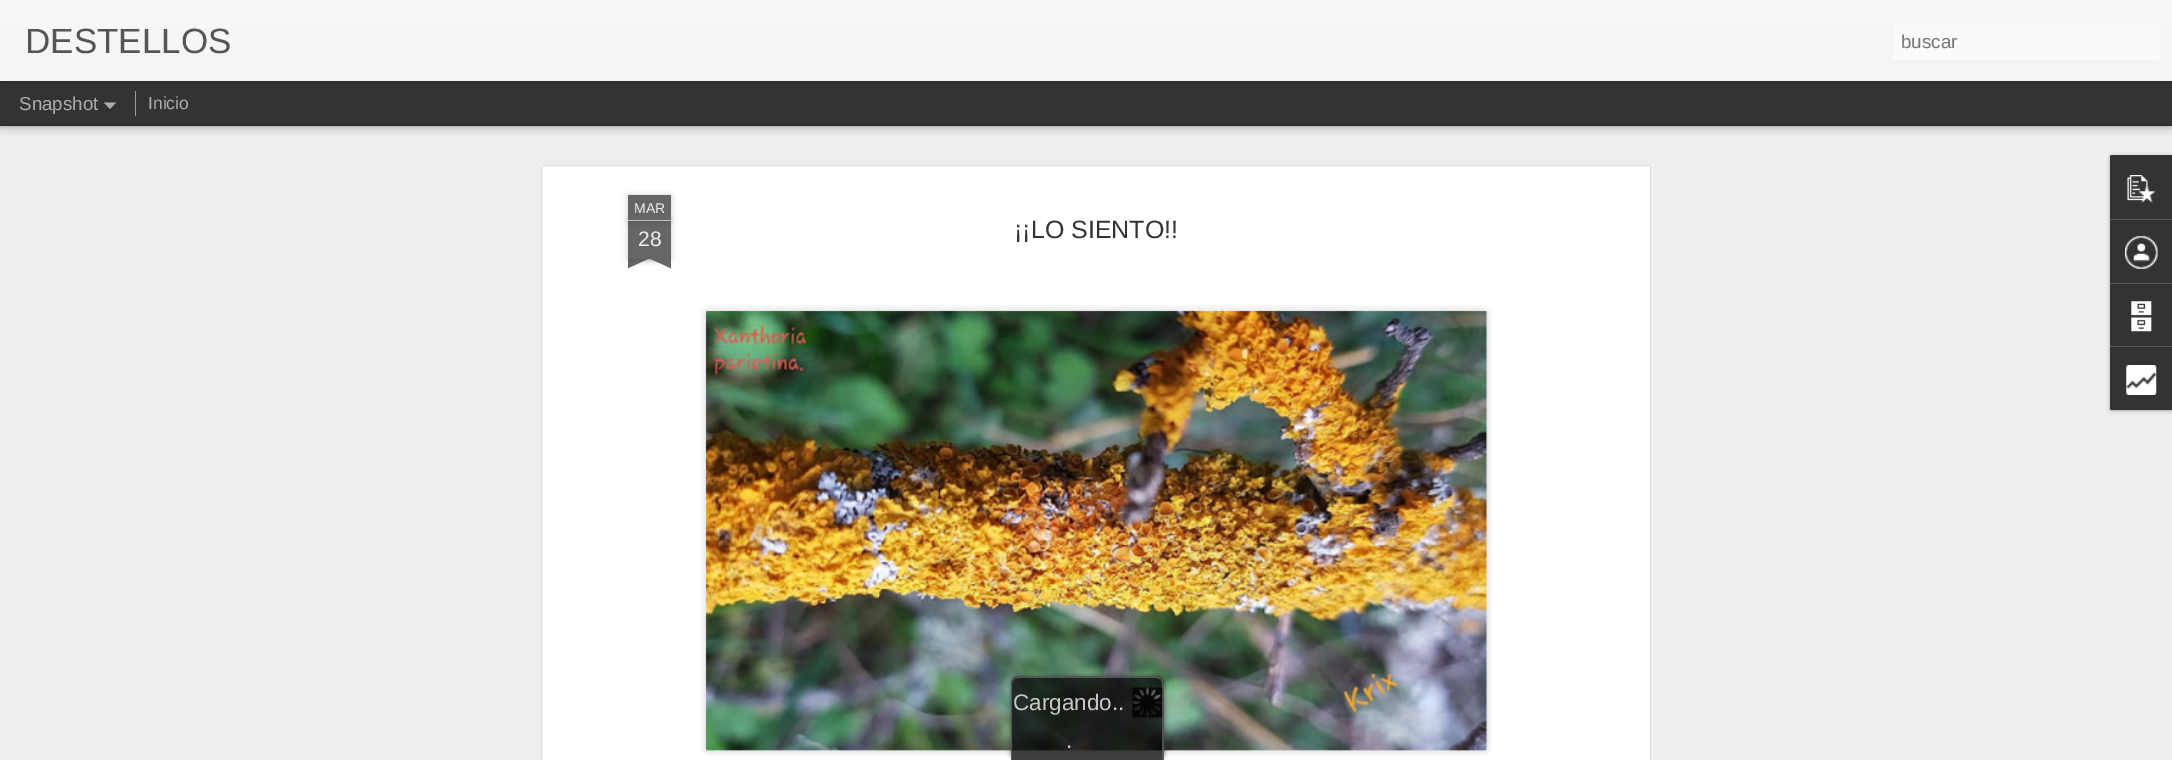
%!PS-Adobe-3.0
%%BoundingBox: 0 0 2172 760
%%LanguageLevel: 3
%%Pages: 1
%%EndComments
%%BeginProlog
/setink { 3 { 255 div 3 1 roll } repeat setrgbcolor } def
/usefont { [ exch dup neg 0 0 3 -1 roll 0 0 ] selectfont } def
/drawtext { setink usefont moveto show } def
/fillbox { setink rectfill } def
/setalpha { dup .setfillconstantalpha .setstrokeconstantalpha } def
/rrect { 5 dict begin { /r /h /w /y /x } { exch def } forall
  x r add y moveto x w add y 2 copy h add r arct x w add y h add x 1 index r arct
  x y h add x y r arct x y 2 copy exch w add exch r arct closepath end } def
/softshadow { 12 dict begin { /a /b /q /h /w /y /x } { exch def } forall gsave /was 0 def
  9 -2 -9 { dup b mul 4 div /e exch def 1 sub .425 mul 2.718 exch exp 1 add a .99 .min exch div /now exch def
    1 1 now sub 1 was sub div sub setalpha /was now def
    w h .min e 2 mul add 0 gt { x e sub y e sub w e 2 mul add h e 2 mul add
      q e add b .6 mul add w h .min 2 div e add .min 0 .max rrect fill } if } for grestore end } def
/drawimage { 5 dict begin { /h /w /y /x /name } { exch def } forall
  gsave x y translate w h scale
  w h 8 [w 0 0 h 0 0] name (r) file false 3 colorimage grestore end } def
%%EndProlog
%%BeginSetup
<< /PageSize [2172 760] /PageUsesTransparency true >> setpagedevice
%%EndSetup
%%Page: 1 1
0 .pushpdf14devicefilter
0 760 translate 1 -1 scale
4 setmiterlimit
0 0 2172 760 51 51 51 fillbox
0 126 2172 634 238 238 238 fillbox
0 0 0 setink
0 81 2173 44 0 5 0.5 softshadow
0 81 2172 44 51 51 51 fillbox
0 0 0 setink
0 0 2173 81 0 3 0.3 softshadow
gsave 0 0 moveto 2172 0 lineto 2172 81 lineto 0 81 lineto closepath clip newpath
<< /ShadingType 2 /ColorSpace /DeviceRGB /Coords [0 0 0 81] /Extend [true true] /Function << /FunctionType 2 /Domain [0 1] /C0 [0.969 0.969 0.969] /C1 [0.957 0.957 0.957] /N 1 >> >> shfill grestore
(DESTELLOS) 25 53 /LiberationSans-Regular 35 85 85 85 drawtext
250 250 250 setink
1893 23 267 37 4 rrect fill
(buscar) 1901 48 /LiberationSans-Regular 18.75 117 117 117 drawtext
(Snapshot) 19 110 /LiberationSans-Regular 18.75 173 173 173 drawtext
104 102.5 moveto 116 102.5 lineto 110 109 lineto closepath fill
135 91 1 25 153 153 153 fillbox
(Inicio) 148 109 /LiberationSans-Regular 17.5 173 173 173 drawtext
540 164 1113 596 255 255 255 fillbox
(assets/img1.rgb) 540 164 1113 596 drawimage
0 0 0 setink
628 221 43 38 0 3 0.2 softshadow
628 221 43 38 102 102 102 fillbox
0 0 0 setink
628 195 43 26 1 3 0.2 softshadow
102 102 102 setink
629 195 moveto 670 195 lineto 670.5 195 671 195.5 671 196 curveto 671 221 lineto 628 221 lineto 628 196 lineto 628 195.5 628.5 195 629 195 curveto closepath fill
628 220 43 1 194 194 194 fillbox
(MAR) 634 213 /LiberationSans-Regular 14 238 238 238 drawtext
(28) 638 246 /LiberationSans-Regular 21 238 238 238 drawtext
gsave
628 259 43 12 rectclip
0 0 0 setink
616 246 63 13 0 3 0.2 softshadow
grestore
gsave
628 259 43 12 rectclip
102 102 102 setink
617 260 moveto 673 234 lineto 678 245 lineto 622 271 lineto closepath fill
grestore
gsave
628 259 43 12 rectclip
0 0 0 setink
620 246 63 13 0 3 0.2 softshadow
grestore
gsave
628 259 43 12 rectclip
102 102 102 setink
626 234 moveto 682 260 lineto 677 271 lineto 620 245 lineto closepath fill
grestore
(¡¡LO SIENTO!!) 1014 238 /LiberationSans-Regular 25 51 51 51 drawtext
(assets/img2.rgb) 700 305 792 451 drawimage
(assets/img3.rgb) 705 310 783 442 drawimage
0 0 0 setink
2110 156 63 255 2.5 2 0.3 softshadow
51 51 51 setink
2112.5 155 moveto 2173 155 lineto 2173 410 lineto 2112.5 410 lineto 2111 410 2110 409 2110 407.5 curveto 2110 157.5 lineto 2110 156 2111 155 2112.5 155 curveto closepath fill
2112.5 155 moveto 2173 155 lineto 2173 219 lineto 2110 219 lineto 2110 157.5 lineto 2110 156 2111 155 2112.5 155 curveto closepath fill
(assets/img4.rgb) 2127 175 28 28 drawimage
2110 219 62 1 88 88 88 fillbox
(assets/img5.rgb) 2125 236 33 33 drawimage
2110 283 62 1 88 88 88 fillbox
(assets/img6.rgb) 2131 301 21 31 drawimage
51 51 51 setink
2110 346 moveto 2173 346 lineto 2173 410 lineto 2112.5 410 lineto 2111 410 2110 409 2110 407.5 curveto closepath fill
2110 346 62 1 88 88 88 fillbox
(assets/img7.rgb) 2126 365 31 30 drawimage
gsave
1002 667 moveto 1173 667 lineto 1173 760 lineto 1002 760 lineto closepath 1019 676 moveto 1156 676 lineto 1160.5 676 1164 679.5 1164 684 curveto 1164 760 lineto 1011 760 lineto 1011 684 lineto 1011 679.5 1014.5 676 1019 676 curveto closepath eoclip newpath
51 51 51 setink
1011 676 153 84 8 2.5 0.75 softshadow
grestore
0.75 setalpha
0 0 0 setink
1019 676 moveto 1156 676 lineto 1160.5 676 1164 679.5 1164 684 curveto 1164 760 lineto 1011 760 lineto 1011 684 lineto 1011 679.5 1014.5 676 1019 676 curveto closepath fill
102 102 102 setink
1019 676 moveto 1156 676 lineto 1160 676 1164 680 1164 684 curveto 1164 760 lineto 1011 760 lineto 1011 684 lineto 1011 680 1015 676 1019 676 curveto closepath 1019 678 moveto 1156 678 lineto 1160 678 1162 680 1162 684 curveto 1162 760 lineto 1012 760 lineto 1012 684 lineto 1012 680 1015 678 1019 678 curveto closepath eofill
1 setalpha
(assets/img8.rgb) 1132 687 31 31 drawimage
(Cargando) 1013 710 /LiberationSans-Regular 22.5 198 199 198 drawtext
(..) 1112 710 /LiberationSans-Regular 22.5 198 199 198 drawtext
(.) 1066 748 /LiberationSans-Regular 22.5 198 199 198 drawtext
.poppdf14devicefilter showpage
%%EOF
